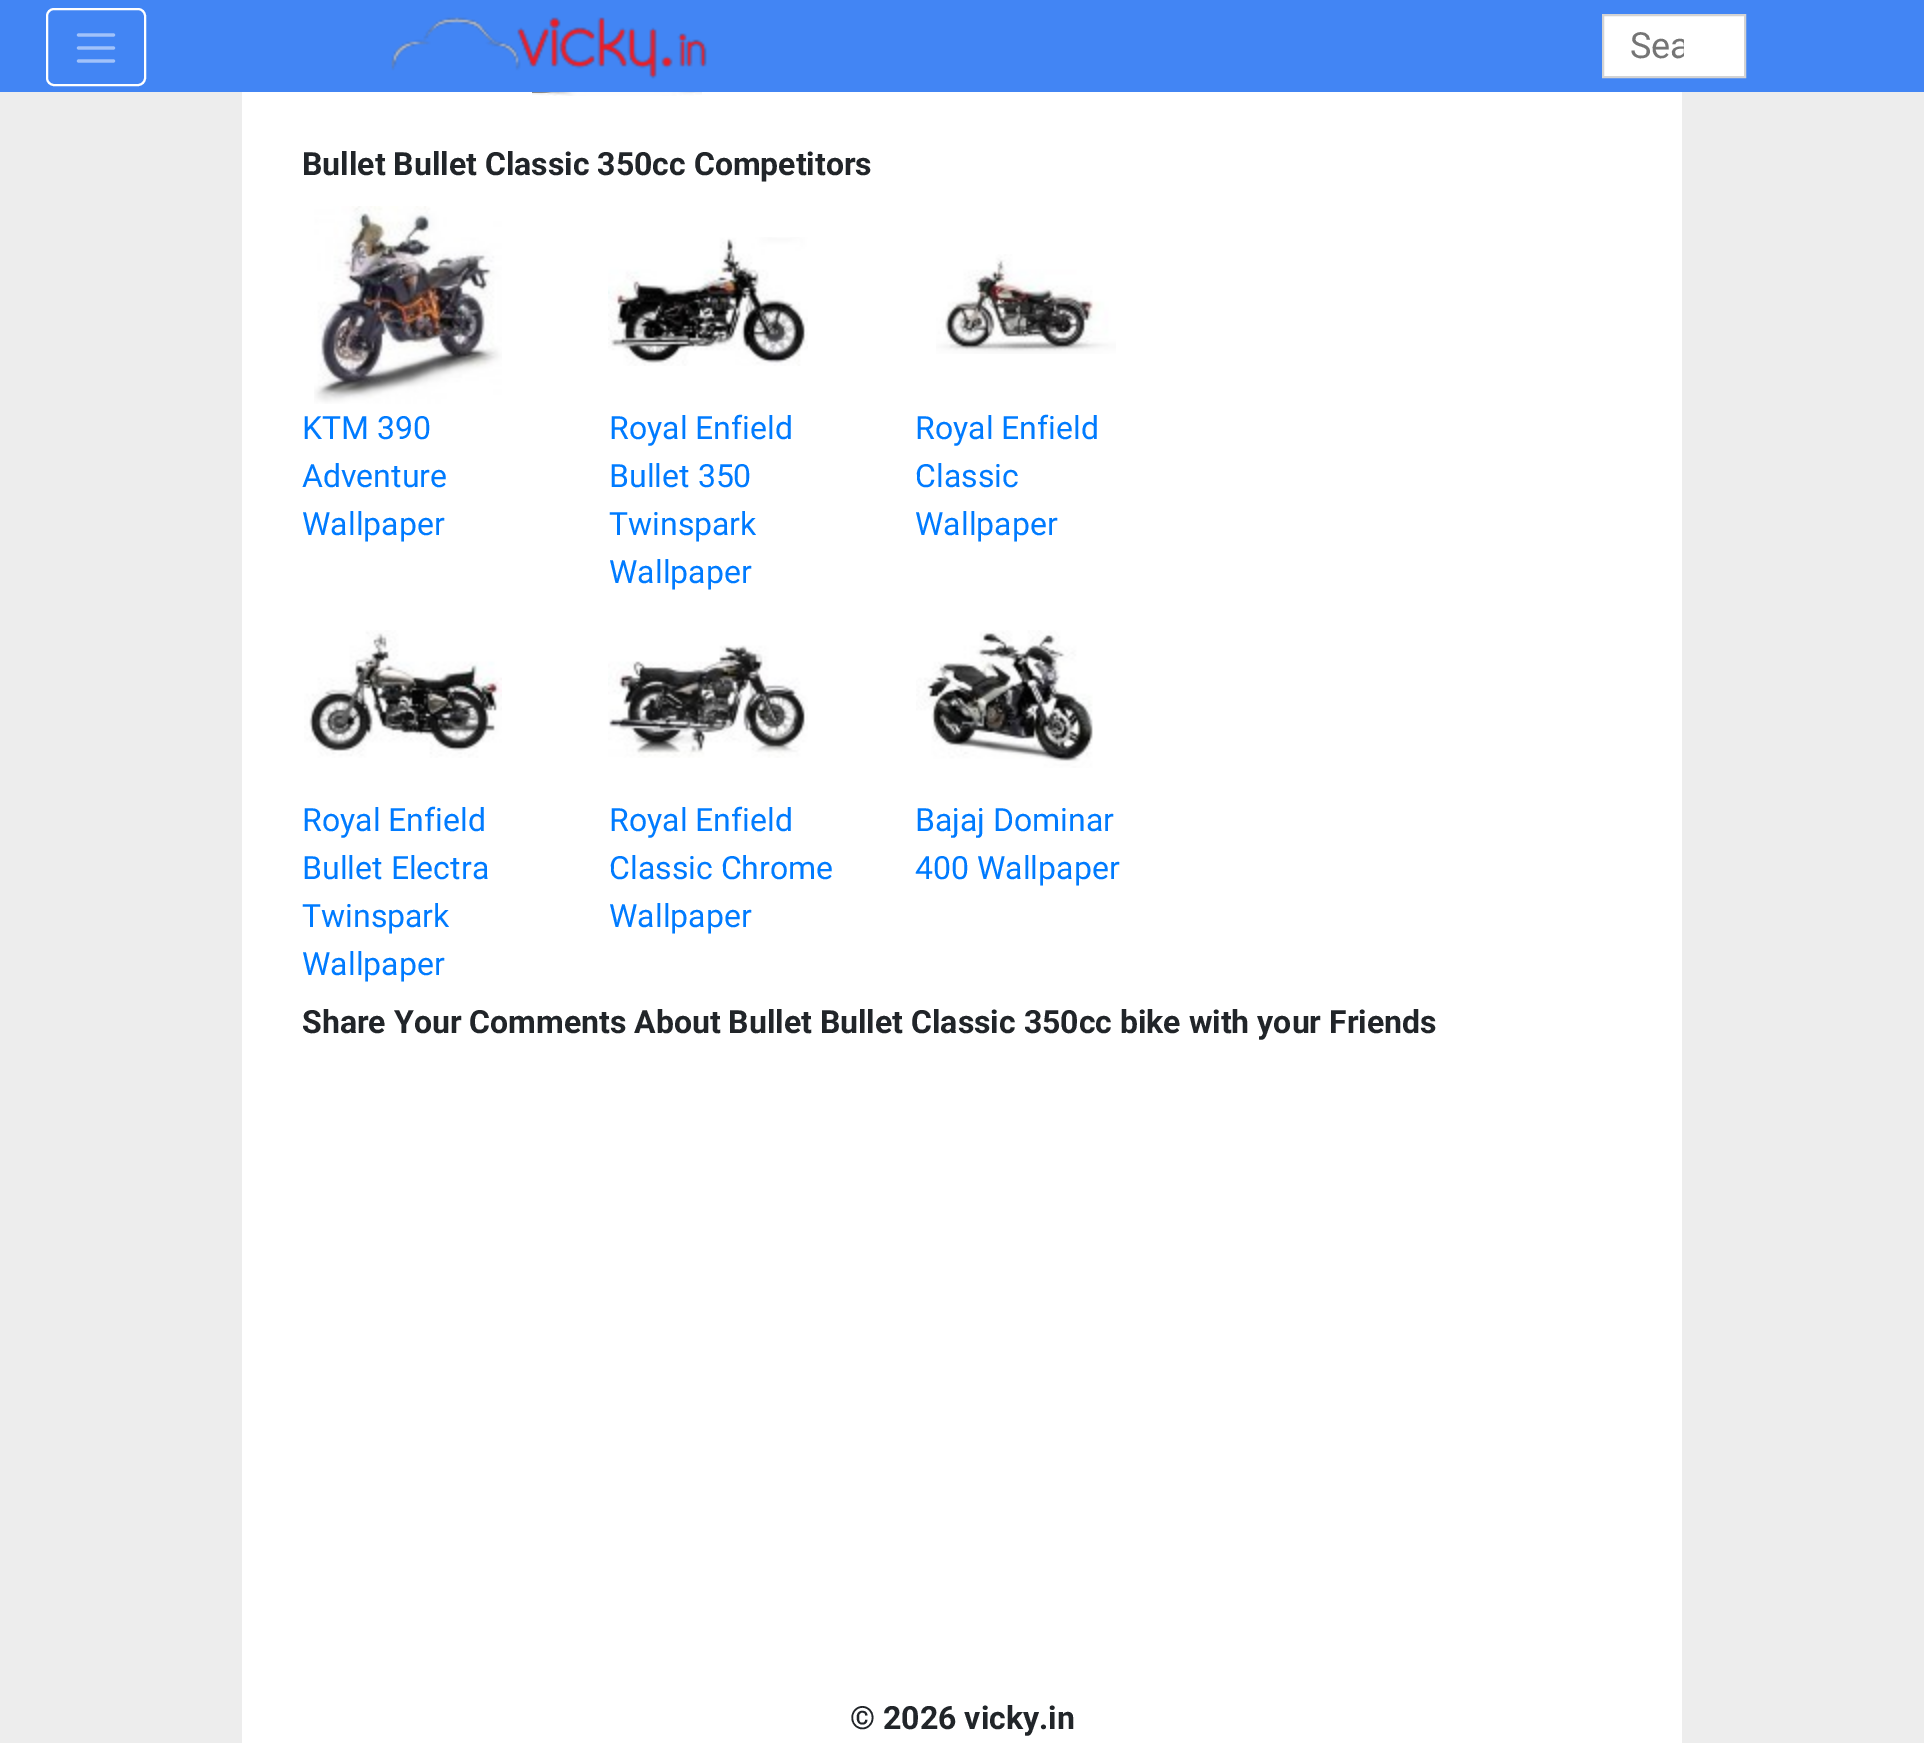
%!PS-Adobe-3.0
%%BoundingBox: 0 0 1924 1743
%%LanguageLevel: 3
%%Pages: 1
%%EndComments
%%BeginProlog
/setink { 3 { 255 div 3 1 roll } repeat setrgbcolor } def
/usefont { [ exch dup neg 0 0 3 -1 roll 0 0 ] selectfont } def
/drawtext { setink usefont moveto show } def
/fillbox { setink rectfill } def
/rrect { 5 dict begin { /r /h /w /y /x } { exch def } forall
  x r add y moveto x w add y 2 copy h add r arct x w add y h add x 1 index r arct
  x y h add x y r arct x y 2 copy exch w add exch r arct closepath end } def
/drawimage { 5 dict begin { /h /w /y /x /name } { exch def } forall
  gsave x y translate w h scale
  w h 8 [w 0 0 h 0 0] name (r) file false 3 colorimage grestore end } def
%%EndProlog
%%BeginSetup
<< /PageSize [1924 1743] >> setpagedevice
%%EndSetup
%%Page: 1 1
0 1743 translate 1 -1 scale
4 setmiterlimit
0 0 1924 1743 237 237 237 fillbox
242 92 1440 1651 255 255 255 fillbox
0 0 1924 92 66 133 244 fillbox
255 255 255 setink
2 setlinewidth
47 9 98 76 7 rrect stroke
161 194 250 setink
3.2 setlinewidth
1 setlinecap
78.5 35 moveto 113.5 35 lineto 78.5 48 moveto 113.5 48 lineto 78.5 61 moveto 113.5 61 lineto stroke
(assets/img1.rgb) 391 17 316 62 drawimage
255 255 255 setink
1603 15 moveto 1745 15 lineto 1745 77 lineto 1603 77 lineto closepath gsave fill grestore
211 211 211 setink
2 setlinewidth
0 setlinecap
stroke
gsave
1620 24 64 42 rectclip
(Sea) 1630 58 /Roboto-Regular 36 117 117 117 drawtext
grestore
(assets/img2.rgb) 532 92 170 4 drawimage
(Bullet Bullet Classic 350cc Competitors) 302 175 /Roboto-Bold 32 33 37 41 drawtext
(assets/img3.rgb) 314 206 188 198 drawimage
(KTM 390) 302 439 /Roboto-Regular 32 0 123 255 drawtext
(Adventure) 302 487 /Roboto-Regular 32 0 123 255 drawtext
(Wallpaper) 302 535 /Roboto-Regular 32 0 123 255 drawtext
(assets/img4.rgb) 608 237 200 129 drawimage
(Royal Enfield) 609 439 /Roboto-Regular 32 0 123 255 drawtext
(Bullet 350) 609 487 /Roboto-Regular 32 0 123 255 drawtext
(Twinspark) 609 535 /Roboto-Regular 32 0 123 255 drawtext
(Wallpaper) 609 583 /Roboto-Regular 32 0 123 255 drawtext
(assets/img5.rgb) 936 254 180 100 drawimage
(Royal Enfield) 915 439 /Roboto-Regular 32 0 123 255 drawtext
(Classic) 915 487 /Roboto-Regular 32 0 123 255 drawtext
(Wallpaper) 915 535 /Roboto-Regular 32 0 123 255 drawtext
(assets/img6.rgb) 304 630 198 128 drawimage
(Royal Enfield) 302 831 /Roboto-Regular 32 0 123 255 drawtext
(Bullet Electra) 302 879 /Roboto-Regular 32 0 123 255 drawtext
(Twinspark) 302 927 /Roboto-Regular 32 0 123 255 drawtext
(Wallpaper) 302 975 /Roboto-Regular 32 0 123 255 drawtext
(assets/img7.rgb) 608 645 200 113 drawimage
(Royal Enfield) 609 831 /Roboto-Regular 32 0 123 255 drawtext
(Classic Chrome) 609 879 /Roboto-Regular 32 0 123 255 drawtext
(Wallpaper) 609 927 /Roboto-Regular 32 0 123 255 drawtext
(assets/img8.rgb) 916 630 177 138 drawimage
(Bajaj Dominar) 915 831 /Roboto-Regular 32 0 123 255 drawtext
(400 Wallpaper) 915 879 /Roboto-Regular 32 0 123 255 drawtext
(Share Your Comments About Bullet Bullet Classic 350cc bike with your Friends) 302 1033 /Roboto-Bold 32 33 37 41 drawtext
(© 2026 vicky.in) 850 1729 /Roboto-Bold 32 33 37 41 drawtext
showpage
%%EOF
